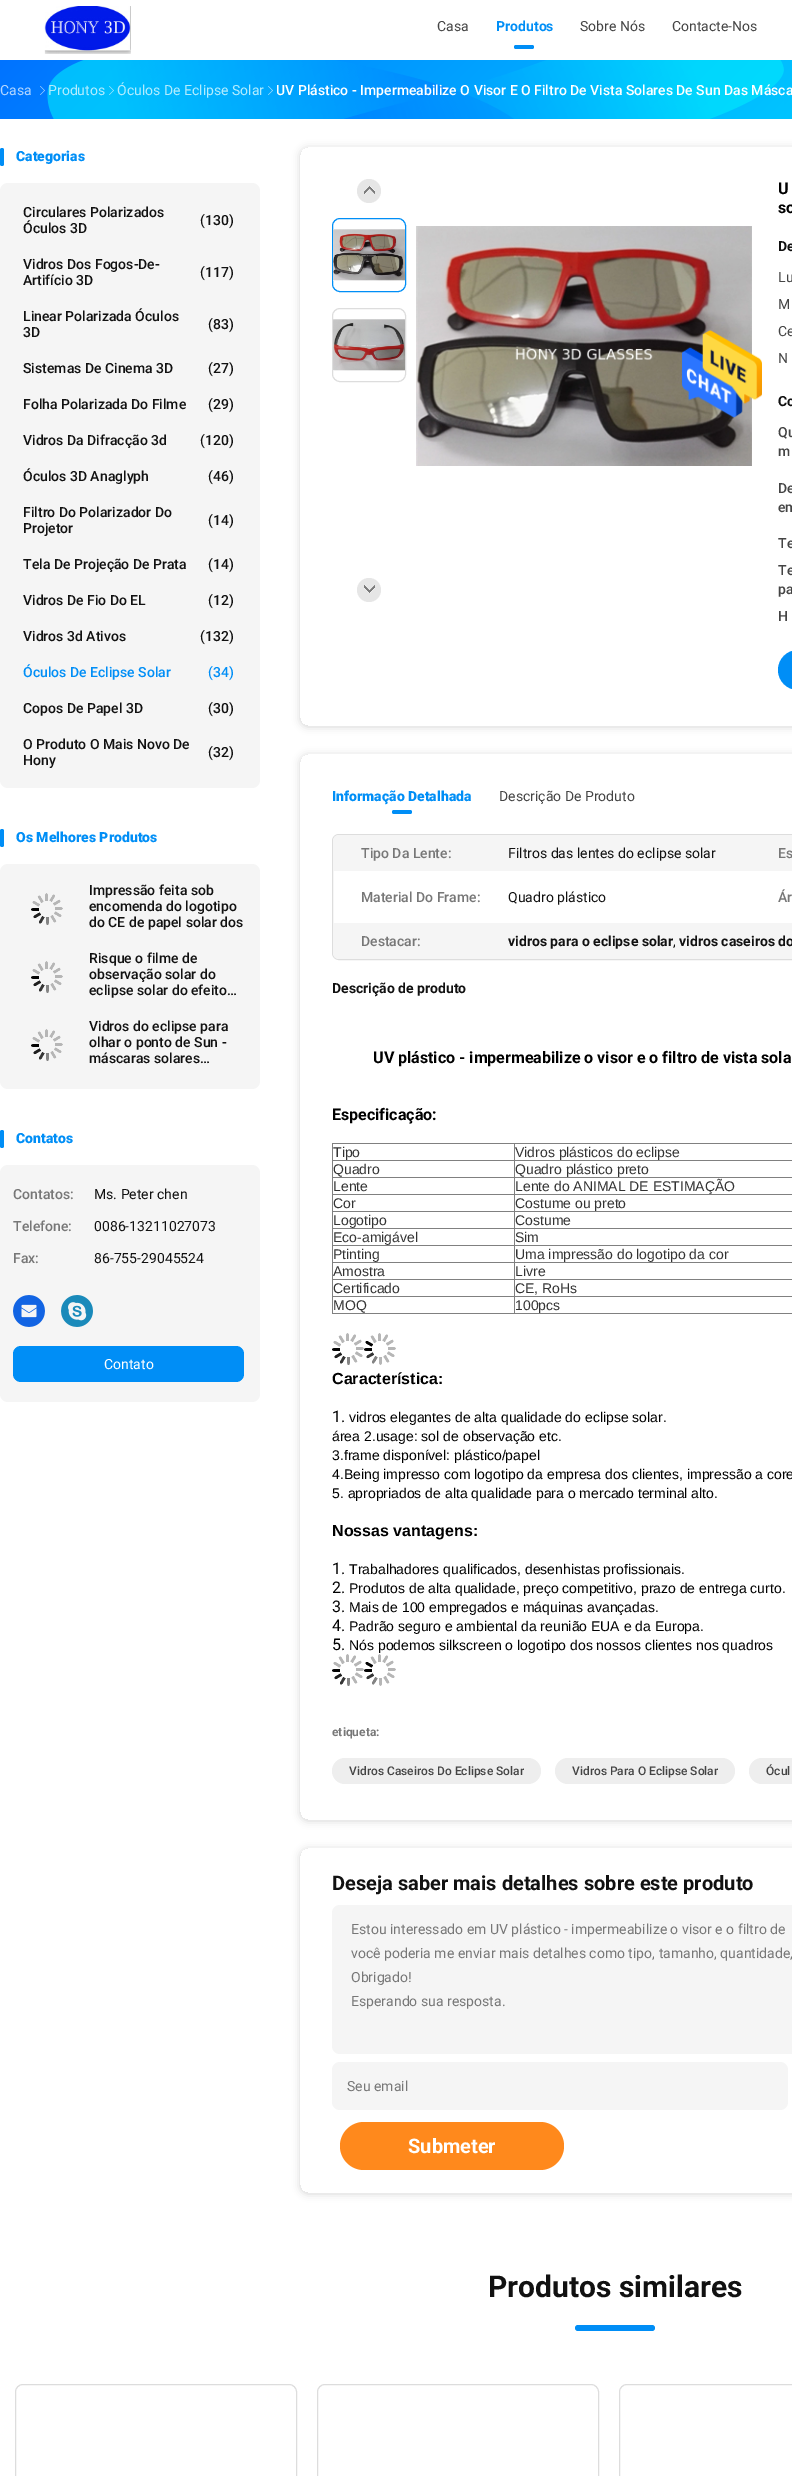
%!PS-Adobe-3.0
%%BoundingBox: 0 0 792 2476
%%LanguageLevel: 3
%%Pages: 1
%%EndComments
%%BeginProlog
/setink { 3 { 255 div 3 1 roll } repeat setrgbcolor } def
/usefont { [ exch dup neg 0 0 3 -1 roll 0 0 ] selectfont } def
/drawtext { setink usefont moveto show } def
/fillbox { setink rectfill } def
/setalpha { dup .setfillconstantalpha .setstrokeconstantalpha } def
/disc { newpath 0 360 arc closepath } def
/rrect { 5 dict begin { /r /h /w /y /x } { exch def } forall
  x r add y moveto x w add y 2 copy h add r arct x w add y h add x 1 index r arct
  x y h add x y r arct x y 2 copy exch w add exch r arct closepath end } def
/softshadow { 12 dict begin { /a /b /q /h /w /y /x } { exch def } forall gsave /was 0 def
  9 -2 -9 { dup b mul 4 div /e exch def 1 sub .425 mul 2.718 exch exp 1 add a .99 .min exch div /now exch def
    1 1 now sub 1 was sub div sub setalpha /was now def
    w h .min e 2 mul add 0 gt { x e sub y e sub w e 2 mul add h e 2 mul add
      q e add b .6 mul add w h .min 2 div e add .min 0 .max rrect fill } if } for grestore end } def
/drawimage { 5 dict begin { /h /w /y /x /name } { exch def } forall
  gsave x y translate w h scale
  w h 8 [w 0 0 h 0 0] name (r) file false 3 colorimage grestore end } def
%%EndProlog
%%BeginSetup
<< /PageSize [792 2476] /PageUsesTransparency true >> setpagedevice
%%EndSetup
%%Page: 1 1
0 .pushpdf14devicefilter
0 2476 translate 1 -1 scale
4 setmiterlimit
0 0 792 2476 255 255 255 fillbox
(assets/img1.rgb) 44 6 87 48 drawimage
(Casa) 437 31 /Roboto-Regular 14 68 68 68 drawtext
(Produtos) 496 31 /Roboto-Bold 14 0 142 246 drawtext
514 45 20 4 2 rrect fill
(Sobre Nós) 580 31 /Roboto-Regular 14 68 68 68 drawtext
(Contacte-Nos) 672 31 /Roboto-Regular 14 68 68 68 drawtext
gsave 0 60 moveto 792 60 lineto 792 119 lineto 0 119 lineto closepath clip newpath
<< /ShadingType 2 /ColorSpace /DeviceRGB /Coords [183 -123 609 302] /Extend [true true] /Function << /FunctionType 2 /Domain [0 1] /C0 [0 0.451 1] /C1 [0 0.769 1] /N 1 >> >> shfill grestore
(assets/img2.rgb) 47 60 467 59 drawimage
(assets/img3.rgb) 344 60 440 59 drawimage
(Casa) 0 95 /Roboto-Regular 14 179 214 255 drawtext
(assets/img4.rgb) 40 86 5 9 drawimage
(Produtos) 48 95 /Roboto-Regular 14 179 236 254 drawtext
(assets/img5.rgb) 109 86 5 9 drawimage
(Óculos De Eclipse Solar) 117 95 /Roboto-Regular 14 179 236 254 drawtext
(assets/img6.rgb) 268 86 5 9 drawimage
(UV Plástico - Impermeabilize O Visor E O Filtro De Vista Solares De Sun Das Másca) 276 95 /Roboto-Medium 14 255 255 255 drawtext
0 142 246 setink
0 148 4 18 2 rrect fill
(Categorias) 16 161 /Roboto-Black 14 0 142 246 drawtext
245 245 245 setink
0 183 260 605 8 rrect fill
(Circulares Polarizados) 23 217 /Roboto-Medium 14 17 17 17 drawtext
(\(130\)) 200 225 /Roboto-Medium 14 17 17 17 drawtext
(Óculos 3D) 23 233 /Roboto-Medium 14 17 17 17 drawtext
(Vidros Dos Fogos-De-) 23 269 /Roboto-Medium 14 17 17 17 drawtext
(\(117\)) 200 277 /Roboto-Medium 14 17 17 17 drawtext
(Artifício 3D) 23 285 /Roboto-Medium 14 17 17 17 drawtext
(Linear Polarizada Óculos) 23 321 /Roboto-Medium 14 17 17 17 drawtext
(3D) 23 337 /Roboto-Medium 14 17 17 17 drawtext
(\(83\)) 208 329 /Roboto-Medium 14 17 17 17 drawtext
(Sistemas De Cinema 3D) 23 373 /Roboto-Medium 14 17 17 17 drawtext
(\(27\)) 208 373 /Roboto-Medium 14 17 17 17 drawtext
(Folha Polarizada Do Filme) 23 409 /Roboto-Medium 14 17 17 17 drawtext
(\(29\)) 208 409 /Roboto-Medium 14 17 17 17 drawtext
(Vidros Da Difracção 3d) 23 445 /Roboto-Medium 14 17 17 17 drawtext
(\(120\)) 200 445 /Roboto-Medium 14 17 17 17 drawtext
(Óculos 3D Anaglyph) 23 481 /Roboto-Medium 14 17 17 17 drawtext
(\(46\)) 208 481 /Roboto-Medium 14 17 17 17 drawtext
(Filtro Do Polarizador Do) 23 517 /Roboto-Medium 14 17 17 17 drawtext
(\(14\)) 208 525 /Roboto-Medium 14 17 17 17 drawtext
(Projetor) 23 533 /Roboto-Medium 14 17 17 17 drawtext
(Tela De Projeção De Prata) 23 569 /Roboto-Medium 14 17 17 17 drawtext
(\(14\)) 208 569 /Roboto-Medium 14 17 17 17 drawtext
(Vidros De Fio Do EL) 23 605 /Roboto-Medium 14 17 17 17 drawtext
(\(12\)) 208 605 /Roboto-Medium 14 17 17 17 drawtext
(Vidros 3d Ativos) 23 641 /Roboto-Medium 14 17 17 17 drawtext
(\(132\)) 200 641 /Roboto-Medium 14 17 17 17 drawtext
(Óculos De Eclipse Solar) 23 677 /Roboto-Medium 14 0 142 246 drawtext
(\(34\)) 208 677 /Roboto-Medium 14 0 142 246 drawtext
(Copos De Papel 3D) 23 713 /Roboto-Medium 14 17 17 17 drawtext
(\(30\)) 208 713 /Roboto-Medium 14 17 17 17 drawtext
(O Produto O Mais Novo De) 23 749 /Roboto-Medium 14 17 17 17 drawtext
(\(32\)) 208 757 /Roboto-Medium 14 17 17 17 drawtext
(Hony) 23 765 /Roboto-Medium 14 17 17 17 drawtext
0 142 246 setink
0 829 4 18 2 rrect fill
(Os Melhores Produtos) 16 842 /Roboto-Black 14 0 142 246 drawtext
245 245 245 setink
0 864 260 225 8 rrect fill
(assets/img7.rgb) 31 893 32 32 drawimage
(Impressão feita sob) 89 895 /Roboto-Medium 14 17 17 17 drawtext
(encomenda do logotipo) 89 911 /Roboto-Medium 14 17 17 17 drawtext
(do CE de papel solar dos) 89 927 /Roboto-Medium 14 17 17 17 drawtext
(assets/img7.rgb) 31 961 32 32 drawimage
(Risque o filme de) 89 963 /Roboto-Medium 14 17 17 17 drawtext
(observação solar do) 89 979 /Roboto-Medium 14 17 17 17 drawtext
(eclipse solar do efeito…) 89 995 /Roboto-Medium 14 17 17 17 drawtext
(assets/img7.rgb) 31 1029 32 32 drawimage
(Vidros do eclipse para) 89 1031 /Roboto-Medium 14 17 17 17 drawtext
(olhar o ponto de Sun -) 89 1047 /Roboto-Medium 14 17 17 17 drawtext
(máscaras solares…) 89 1063 /Roboto-Medium 14 17 17 17 drawtext
gsave
0 1129 260 273 4 rrect clip newpath
0 142 246 setink
0 1130 4 18 2 rrect fill
grestore
(Contatos) 16 1143 /Roboto-Black 14 0 142 246 drawtext
245 245 245 setink
0 1165 260 237 8 rrect fill
(Contatos:) 13 1199 /Roboto-Medium 14 119 119 119 drawtext
(Ms. Peter chen) 94 1199 /Roboto-Regular 14 17 17 17 drawtext
(Telefone:) 13 1231 /Roboto-Medium 14 119 119 119 drawtext
(0086-13211027073) 94 1231 /Roboto-Regular 14 17 17 17 drawtext
(Fax:) 13 1263 /Roboto-Medium 14 119 119 119 drawtext
(86-755-29045524) 94 1263 /Roboto-Regular 14 17 17 17 drawtext
(assets/img8.rgb) 13 1295 32 32 drawimage
(assets/img9.rgb) 61 1295 32 32 drawimage
0 142 246 setink
13 1346 231 36 8 rrect fill
(Contato) 104 1369 /Roboto-Regular 14 255 255 255 drawtext
gsave
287 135 moveto 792 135 lineto 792 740 lineto 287 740 lineto closepath 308 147 moveto 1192 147 lineto 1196.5 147 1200 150.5 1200 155 curveto 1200 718 lineto 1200 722.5 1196.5 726 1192 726 curveto 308 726 lineto 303.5 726 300 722.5 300 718 curveto 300 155 lineto 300 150.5 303.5 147 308 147 curveto closepath eoclip newpath
0 0 0 setink
300 148 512 579 8 4 0.16 softshadow
grestore
230 230 230 setink
369 191 12 disc fill
(assets/img10.rgb) 364 186 11 8 drawimage
0 142 246 setink
332.5 218.5 73 73 7.5 rrect stroke
(assets/img11.rgb) 333 229 72 52 drawimage
221 221 221 setink
332.5 308.5 73 73 7.5 rrect stroke
(assets/img12.rgb) 333 319 72 52 drawimage
230 230 230 setink
369 590 12 disc fill
(assets/img13.rgb) 364 585 11 8 drawimage
(assets/img14.rgb) 416 226 336 240 drawimage
(U) 778 194 /Roboto-Bold 16 0 0 0 drawtext
(so) 778 213 /Roboto-Bold 16 0 0 0 drawtext
(De) 778 251 /Roboto-Bold 14 17 17 17 drawtext
(Lu) 778 282 /Roboto-Regular 14 68 68 68 drawtext
(M) 778 309 /Roboto-Regular 14 68 68 68 drawtext
(Ce) 778 336 /Roboto-Regular 14 68 68 68 drawtext
(N) 778 363 /Roboto-Regular 14 68 68 68 drawtext
(Co) 778 406 /Roboto-Bold 14 17 17 17 drawtext
(Qu) 778 437 /Roboto-Medium 14 68 68 68 drawtext
(m) 778 456 /Roboto-Medium 14 68 68 68 drawtext
(De) 778 493 /Roboto-Medium 14 68 68 68 drawtext
(em) 778 512 /Roboto-Medium 14 68 68 68 drawtext
(Te) 778 548 /Roboto-Medium 14 68 68 68 drawtext
(Te) 778 575 /Roboto-Medium 14 68 68 68 drawtext
(pa) 778 594 /Roboto-Medium 14 68 68 68 drawtext
(H) 778 621 /Roboto-Medium 14 68 68 68 drawtext
0 142 246 setink
778 650 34 40 20 rrect fill
gsave
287 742 moveto 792 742 lineto 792 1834 lineto 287 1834 lineto closepath 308 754 moveto 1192 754 lineto 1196.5 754 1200 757.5 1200 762 curveto 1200 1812 lineto 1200 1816.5 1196.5 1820 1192 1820 curveto 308 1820 lineto 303.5 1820 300 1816.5 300 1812 curveto 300 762 lineto 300 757.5 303.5 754 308 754 curveto closepath eoclip newpath
0 0 0 setink
300 755 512 1066 8 4 0.16 softshadow
grestore
(Informação Detalhada) 332 801 /Roboto-Black 14 0 142 246 drawtext
392 810 20 4 2 rrect fill
(Descrição De Produto) 499 801 /Roboto-Regular 14 68 68 68 drawtext
221 221 221 setink
332.5 834.5 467 125 6.5 rrect stroke
245 245 245 setink
339 835 moveto 792 835 lineto 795.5 835 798 837.5 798 841 curveto 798 871 lineto 333 871 lineto 333 841 lineto 333 837.5 335.5 835 339 835 curveto closepath fill
(Tipo Da Lente:) 361 858 /Roboto-Medium 14 119 119 119 drawtext
(Filtros das lentes do eclipse solar) 508 858 /Roboto-Regular 14 17 17 17 drawtext
(Es) 778 858 /Roboto-Medium 14 119 119 119 drawtext
(Material Do Frame:) 361 902 /Roboto-Medium 14 119 119 119 drawtext
(Quadro plástico) 508 902 /Roboto-Regular 14 17 17 17 drawtext
(Ár) 778 902 /Roboto-Medium 14 119 119 119 drawtext
245 245 245 setink
333 923 moveto 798 923 lineto 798 953 lineto 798 956.5 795.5 959 792 959 curveto 339 959 lineto 335.5 959 333 956.5 333 953 curveto closepath fill
(Destacar:) 361 946 /Roboto-Medium 14 119 119 119 drawtext
(vidros para o eclipse solar) 508 946 /Roboto-Bold 14 17 17 17 drawtext
(,) 673 946 /Roboto-Regular 14 17 17 17 drawtext
(vidros caseiros do) 679 946 /Roboto-Bold 14 17 17 17 drawtext
(Descrição de produto) 332 993 /Roboto-Bold 14 17 17 17 drawtext
(UV plástico - impermeabilize o visor e o filtro de vista sola) 373 1063 /Roboto-Bold 16 0 0 0 drawtext
(Especificação:) 332 1120 /Roboto-Bold 16 0 0 0 drawtext
332 1143 460 1 128 128 128 fillbox
332 1313 460 1 128 128 128 fillbox
332 1143 1 171 128 128 128 fillbox
(Tipo) 333 1157 /LiberationSans-Regular 14 51 51 51 drawtext
514 1160 278 1 128 128 128 fillbox
514 1177 278 1 128 128 128 fillbox
514 1194 278 1 128 128 128 fillbox
514 1211 278 1 128 128 128 fillbox
514 1228 278 1 128 128 128 fillbox
514 1245 278 1 128 128 128 fillbox
514 1262 278 1 128 128 128 fillbox
514 1279 278 1 128 128 128 fillbox
514 1296 278 1 128 128 128 fillbox
514 1296 1 18 128 128 128 fillbox
332 1296 183 1 128 128 128 fillbox
514 1279 1 18 128 128 128 fillbox
332 1279 183 1 128 128 128 fillbox
514 1262 1 18 128 128 128 fillbox
332 1262 183 1 128 128 128 fillbox
514 1245 1 18 128 128 128 fillbox
332 1245 183 1 128 128 128 fillbox
514 1228 1 18 128 128 128 fillbox
332 1228 183 1 128 128 128 fillbox
514 1211 1 18 128 128 128 fillbox
332 1211 183 1 128 128 128 fillbox
514 1194 1 18 128 128 128 fillbox
332 1194 183 1 128 128 128 fillbox
514 1177 1 18 128 128 128 fillbox
332 1177 183 1 128 128 128 fillbox
514 1160 1 18 128 128 128 fillbox
332 1160 183 1 128 128 128 fillbox
514 1143 1 18 128 128 128 fillbox
(Vidros plásticos do eclipse) 515 1157 /LiberationSans-Regular 14 51 51 51 drawtext
(Quadro) 333 1174 /LiberationSans-Regular 14 51 51 51 drawtext
(Quadro plástico preto) 515 1174 /LiberationSans-Regular 14 51 51 51 drawtext
(Lente) 333 1191 /LiberationSans-Regular 14 51 51 51 drawtext
(Lente do ANIMAL DE ESTIMAÇÃO) 515 1191 /LiberationSans-Regular 14 51 51 51 drawtext
(Cor) 333 1208 /LiberationSans-Regular 14 51 51 51 drawtext
(Costume ou preto) 515 1208 /LiberationSans-Regular 14 51 51 51 drawtext
(Logotipo) 333 1225 /LiberationSans-Regular 14 51 51 51 drawtext
(Costume) 515 1225 /LiberationSans-Regular 14 51 51 51 drawtext
(Eco-amigável) 333 1242 /LiberationSans-Regular 14 51 51 51 drawtext
(Sim) 515 1242 /LiberationSans-Regular 14 51 51 51 drawtext
(Ptinting) 333 1259 /LiberationSans-Regular 14 51 51 51 drawtext
(Uma impressão do logotipo da cor) 515 1259 /LiberationSans-Regular 14 51 51 51 drawtext
(Amostra) 333 1276 /LiberationSans-Regular 14 51 51 51 drawtext
(Livre) 515 1276 /LiberationSans-Regular 14 51 51 51 drawtext
(Certificado) 333 1293 /LiberationSans-Regular 14 51 51 51 drawtext
(CE, RoHs) 515 1293 /LiberationSans-Regular 14 51 51 51 drawtext
(MOQ) 333 1310 /LiberationSans-Regular 14 51 51 51 drawtext
(100pcs) 515 1310 /LiberationSans-Regular 14 51 51 51 drawtext
(assets/img15.rgb) 332 1333 32 32 drawimage
(assets/img16.rgb) 364 1333 32 32 drawimage
(Característica:) 332 1384 /LiberationSans-Bold 16 0 0 0 drawtext
(1.) 332 1422 /Roboto-Regular 16 0 0 0 drawtext
(vidros elegantes de alta qualidade do eclipse solar.) 349 1422 /LiberationSans-Regular 14 0 0 0 drawtext
(área 2.usage: sol de observação etc.) 332 1441 /LiberationSans-Regular 14 0 0 0 drawtext
(3.frame disponível: plástico/papel) 332 1460 /LiberationSans-Regular 14 0 0 0 drawtext
(4.Being impresso com logotipo da empresa dos clientes, impressão a core) 332 1479 /LiberationSans-Regular 14 0 0 0 drawtext
(5. apropriados de alta qualidade para o mercado terminal alto.) 332 1498 /LiberationSans-Regular 14 0 0 0 drawtext
(Nossas vantagens:) 332 1536 /LiberationSans-Bold 16 0 0 0 drawtext
(1.) 332 1574 /Roboto-Regular 16 0 0 0 drawtext
(Trabalhadores qualificados, desenhistas profissionais.) 349 1574 /LiberationSans-Regular 14 0 0 0 drawtext
(2.) 332 1593 /Roboto-Regular 16 0 0 0 drawtext
(Produtos de alta qualidade, preço competitivo, prazo de entrega curto.) 349 1593 /LiberationSans-Regular 14 0 0 0 drawtext
(3.) 332 1612 /Roboto-Regular 16 0 0 0 drawtext
(Mais de 100 empregados e máquinas avançadas.) 349 1612 /LiberationSans-Regular 14 0 0 0 drawtext
(4.) 332 1631 /Roboto-Regular 16 0 0 0 drawtext
(Padrão seguro e ambiental da reunião EUA e da Europa.) 349 1631 /LiberationSans-Regular 14 0 0 0 drawtext
(5.) 332 1650 /Roboto-Regular 16 0 0 0 drawtext
(Nós podemos silkscreen o logotipo dos nossos clientes nos quadros) 349 1650 /LiberationSans-Regular 14 0 0 0 drawtext
(assets/img15.rgb) 332 1654 32 32 drawimage
(assets/img16.rgb) 364 1654 32 32 drawimage
(etiqueta:) 332 1736 /Roboto-Bold 12 119 119 119 drawtext
238 238 238 setink
332 1758 209 26 13 rrect fill
(Vidros Caseiros Do Eclipse Solar) 349 1775 /Roboto-Medium 12 68 68 68 drawtext
238 238 238 setink
555 1758 180 26 13 rrect fill
(Vidros Para O Eclipse Solar) 572 1775 /Roboto-Medium 12 68 68 68 drawtext
238 238 238 setink
749 1758 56 26 13 rrect fill
(Ócul) 766 1775 /Roboto-Medium 12 68 68 68 drawtext
gsave
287 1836 moveto 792 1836 lineto 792 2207 lineto 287 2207 lineto closepath 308 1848 moveto 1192 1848 lineto 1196.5 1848 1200 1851.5 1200 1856 curveto 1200 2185 lineto 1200 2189.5 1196.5 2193 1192 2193 curveto 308 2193 lineto 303.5 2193 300 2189.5 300 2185 curveto 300 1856 lineto 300 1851.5 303.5 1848 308 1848 curveto closepath eoclip newpath
0 0 0 setink
300 1849 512 345 8 4 0.16 softshadow
grestore
(Deseja saber mais detalhes sobre este produto) 332 1890 /Roboto-Bold 20 17 17 17 drawtext
245 245 245 setink
332 1905 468 149 8 rrect fill
(Estou interessado em UV plástico - impermeabilize o visor e o filtro de) 351 1934 /Roboto-Regular 14 119 119 119 drawtext
(você poderia me enviar mais detalhes como tipo, tamanho, quantidade,) 351 1958 /Roboto-Regular 14 119 119 119 drawtext
(Obrigado!) 351 1982 /Roboto-Regular 14 119 119 119 drawtext
(Esperando sua resposta.) 351 2006 /Roboto-Regular 14 119 119 119 drawtext
245 245 245 setink
332 2062 456 48 8 rrect fill
(Seu email) 347 2091 /Roboto-Regular 14 119 119 119 drawtext
255 137 28 setink
340 2122 224 48 24 rrect fill
(Submeter) 408 2153 /Roboto-Bold 20 255 255 255 drawtext
(assets/img17.rgb) 682 330 80 88 drawimage
(Produtos similares) 488 2297 /Roboto-Bold 30 17 17 17 drawtext
0 142 246 setink
575 2325 80 6 3 rrect fill
221 221 221 setink
15.5 2384.5 281 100 7.5 rrect stroke
317.5 2384.5 281 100 7.5 rrect stroke
619.5 2384.5 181 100 7.5 rrect stroke
.poppdf14devicefilter showpage
%%EOF
